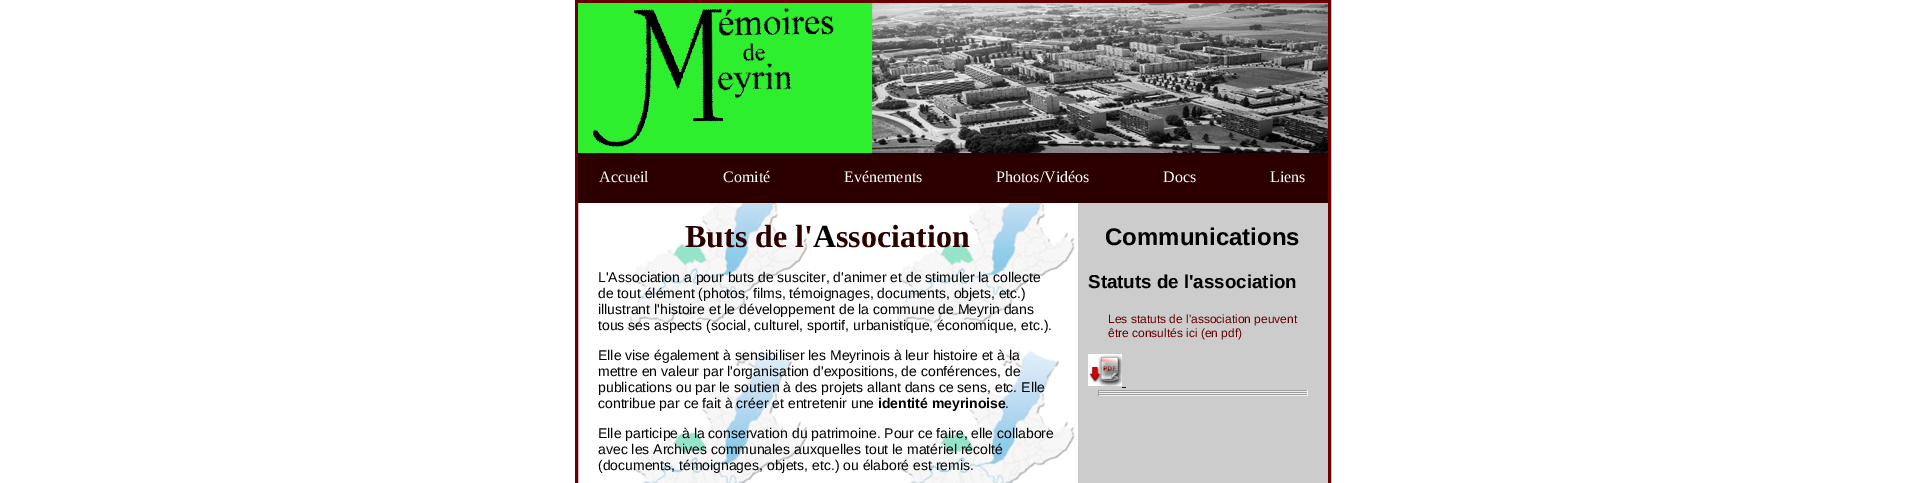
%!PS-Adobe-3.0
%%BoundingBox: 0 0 1905 483
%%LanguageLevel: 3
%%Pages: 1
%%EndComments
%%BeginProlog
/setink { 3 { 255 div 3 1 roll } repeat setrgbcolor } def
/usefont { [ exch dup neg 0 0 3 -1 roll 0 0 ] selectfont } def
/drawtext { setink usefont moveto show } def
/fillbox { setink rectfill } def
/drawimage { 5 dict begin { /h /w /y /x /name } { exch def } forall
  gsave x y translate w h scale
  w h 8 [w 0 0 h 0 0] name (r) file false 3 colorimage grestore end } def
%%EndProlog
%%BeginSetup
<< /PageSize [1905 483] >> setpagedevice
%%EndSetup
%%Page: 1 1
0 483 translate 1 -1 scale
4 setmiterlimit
0 0 1905 483 255 255 255 fillbox
102 0 0 setink
3 setlinewidth
576.5 1.5 753 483 rectstroke
(assets/img1.rgb) 578 3 750 150 drawimage
578 153 750 50 45 0 0 fillbox
(Accueil) 599 182 /LiberationSerif-Regular 16 255 255 255 drawtext
(Comité) 723 182 /LiberationSerif-Regular 16 255 255 255 drawtext
(Evénements) 844 182 /LiberationSerif-Regular 16 255 255 255 drawtext
(Photos/Vidéos) 996 182 /LiberationSerif-Regular 16 255 255 255 drawtext
(Docs) 1163 182 /LiberationSerif-Regular 16 255 255 255 drawtext
(Liens) 1270 182 /LiberationSerif-Regular 16 255 255 255 drawtext
(assets/img2.rgb) 626 203 449 280 drawimage
(Buts de l') 685 247 /LiberationSerif-Bold 32 45 0 0 drawtext
(A) 813 247 /LiberationSerif-Bold 32 0 0 0 drawtext
(ssociation) 836 247 /LiberationSerif-Bold 32 45 0 0 drawtext
(L'Association a pour buts de susciter, d'animer et de stimuler la collecte) 598 282 /LiberationSans-Regular 14 0 0 0 drawtext
(de tout élément \(photos, films, témoignages, documents, objets, etc.\)) 598 298 /LiberationSans-Regular 14 0 0 0 drawtext
(illustrant l'histoire et le développement de la commune de Meyrin dans) 598 314 /LiberationSans-Regular 14 0 0 0 drawtext
(tous ses aspects \(social, culturel, sportif, urbanistique, économique, etc.\).) 598 330 /LiberationSans-Regular 14 0 0 0 drawtext
(Elle vise également à sensibiliser les Meyrinois à leur histoire et à la) 598 360 /LiberationSans-Regular 14 0 0 0 drawtext
(mettre en valeur par l'organisation d'expositions, de conférences, de) 598 376 /LiberationSans-Regular 14 0 0 0 drawtext
(publications ou par le soutien à des projets allant dans ce sens, etc. Elle) 598 392 /LiberationSans-Regular 14 0 0 0 drawtext
(contribue par ce fait à créer et entretenir une) 598 408 /LiberationSans-Regular 14 0 0 0 drawtext
(identité meyrinoise) 878 408 /LiberationSans-Bold 14 0 0 0 drawtext
(.) 1005 408 /LiberationSans-Regular 14 0 0 0 drawtext
(Elle participe à la conservation du patrimoine. Pour ce faire, elle collabore) 598 438 /LiberationSans-Regular 14 0 0 0 drawtext
(avec les Archives communales auxquelles tout le matériel récolté) 598 454 /LiberationSans-Regular 14 0 0 0 drawtext
(\(documents, témoignages, objets, etc.\) ou élaboré est remis.) 598 470 /LiberationSans-Regular 14 0 0 0 drawtext
1078 203 250 280 204 204 204 fillbox
(Communications) 1105 245 /LiberationSans-Bold 24 0 0 0 drawtext
(Statuts de l'association) 1088 288 /LiberationSans-Bold 18.75 0 0 0 drawtext
(Les statuts de l'association peuvent) 1108 323 /LiberationSans-Regular 12 102 0 0 drawtext
(être consultés ici \(en pdf\)) 1108 337 /LiberationSans-Regular 12 102 0 0 drawtext
(assets/img3.rgb) 1088 354 34 32 drawimage
1122 387 4 1 0 0 238 fillbox
1098 390 210 1 159 159 159 fillbox
1307 390 1 2 238 238 238 fillbox
1098 391 210 1 238 238 238 fillbox
1098 390 1 2 159 159 159 fillbox
1098 392 210 1 159 159 159 fillbox
1307 392 1 2 238 238 238 fillbox
1098 393 210 1 238 238 238 fillbox
1098 392 1 2 159 159 159 fillbox
1098 394 210 1 159 159 159 fillbox
1307 394 1 2 238 238 238 fillbox
1098 395 210 1 238 238 238 fillbox
1098 394 1 2 159 159 159 fillbox
showpage
%%EOF
